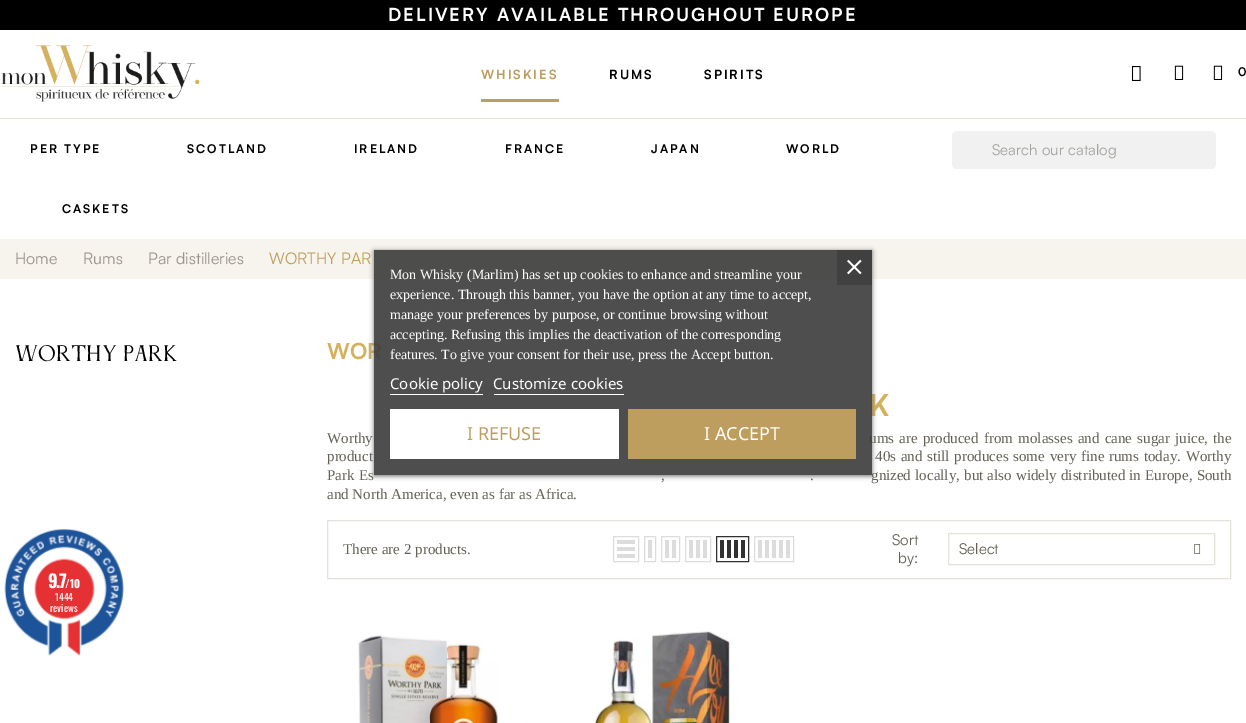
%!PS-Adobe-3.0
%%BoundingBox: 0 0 1246 723
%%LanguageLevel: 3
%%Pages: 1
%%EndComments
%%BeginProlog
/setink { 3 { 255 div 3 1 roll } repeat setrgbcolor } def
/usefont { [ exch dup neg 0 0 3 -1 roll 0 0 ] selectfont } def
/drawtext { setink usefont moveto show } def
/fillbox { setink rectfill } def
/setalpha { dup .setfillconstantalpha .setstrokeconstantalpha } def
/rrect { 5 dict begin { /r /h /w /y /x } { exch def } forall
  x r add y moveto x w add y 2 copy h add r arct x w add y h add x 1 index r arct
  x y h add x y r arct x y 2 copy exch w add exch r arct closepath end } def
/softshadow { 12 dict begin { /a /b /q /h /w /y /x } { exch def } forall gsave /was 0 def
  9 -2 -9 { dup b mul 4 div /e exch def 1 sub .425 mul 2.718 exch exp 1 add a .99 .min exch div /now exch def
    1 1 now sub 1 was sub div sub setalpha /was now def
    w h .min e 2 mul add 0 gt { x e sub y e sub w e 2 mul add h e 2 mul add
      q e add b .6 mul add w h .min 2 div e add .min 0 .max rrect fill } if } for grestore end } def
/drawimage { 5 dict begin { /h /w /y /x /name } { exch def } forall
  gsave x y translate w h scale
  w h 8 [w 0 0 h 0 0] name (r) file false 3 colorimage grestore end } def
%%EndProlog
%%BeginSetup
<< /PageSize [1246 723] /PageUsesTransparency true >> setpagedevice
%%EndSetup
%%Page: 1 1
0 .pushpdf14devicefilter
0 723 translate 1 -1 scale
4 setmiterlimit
0 0 1246 723 255 255 255 fillbox
0 0 1246 30 0 0 0 fillbox
/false-Bold 18 usefont
255 255 255 setink
388 21 moveto 2 0 (DELIVERY AVAILABLE THROUGHOUT EUROPE) ashow
(assets/img1.rgb) 1 45 199 57 drawimage
481 99 78 3 189 158 94 fillbox
/false-Bold 12.75 usefont
481 79 moveto 2 0 (WHISKIES) ashow
0 0 0 setink
609 79 moveto 2 0 (RUMS) ashow
704 79 moveto 2 0 (SPIRITS) ashow
(assets/img2.rgb) 1131 66 10 15 drawimage
(assets/img3.rgb) 1174 65 10 15 drawimage
(assets/img4.rgb) 1213 65 10 15 drawimage
(0) 1238 76 /false-Bold 12 0 0 0 drawtext
0 118 1246 1 229 225 219 fillbox
0 0 0 setink
30 153 moveto 2 0 (PER TYPE) ashow
187 153 moveto 2 0 (SCOTLAND) ashow
354 153 moveto 2 0 (IRELAND) ashow
505 153 moveto 2 0 (FRANCE) ashow
651 153 moveto 2 0 (JAPAN) ashow
786 153 moveto 2 0 (WORLD) ashow
62 213 moveto 2 0 (CASKETS) ashow
241 241 241 setink
952 131 264 38 5 rrect fill
(Search our catalog) 992 155 /false-Regular 15 165 163 158 drawtext
0 239 1246 40 247 243 237 fillbox
(Home) 15 264 /false-Regular 16 152 147 137 drawtext
(Rums) 83 264 /false-Regular 16 152 147 137 drawtext
(Par distilleries) 148 264 /false-Regular 16 152 147 137 drawtext
(WORTHY PAR) 269 264 /false-Regular 16 189 158 94 drawtext
(WORTHY PARK) 15 361 /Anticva-Regular 20 0 0 0 drawtext
(WOR) 327 359 /false-Bold 22 213 177 95 drawtext
(K) 869 416 /false-Bold 30 213 177 95 drawtext
/LiberationSerif-Regular 15 usefont
100 96 87 setink
327 443 moveto 1.5 0 32 (Worthy) widthshow
869 443 moveto 1.5 0 32 (ums are produced from molasses and cane sugar juice, the) widthshow
327 461 moveto 1 0 32 (product) widthshow
875 461 moveto 1 0 32 (40s and still produces some very fine rums today. Worthy) widthshow
327 480 moveto 0.5 0 32 (Park Es) widthshow
661 480 moveto 0.5 0 32 (,) widthshow
810 480 moveto 0.5 0 32 (.) widthshow
871 480 moveto 0.5 0 32 (gnized locally, but also widely distributed in Europe, South) widthshow
(and North America, even as far as Africa.) 327 499 /LiberationSerif-Regular 15 100 96 87 drawtext
229 225 219 setink
327.5 520.5 903 58 rectstroke
(There are 2 products.) 343 554 /LiberationSerif-Regular 15 100 96 87 drawtext
220 220 220 setink
613.5 536.5 25 25 rectstroke
617 554 18 4 220 220 220 fillbox
617 547 18 4 220 220 220 fillbox
617 540 18 4 220 220 220 fillbox
644.5 536.5 11 25 rectstroke
648 540 4 18 220 220 220 fillbox
661.5 536.5 18 25 rectstroke
672 540 4 18 220 220 220 fillbox
665 540 4 18 220 220 220 fillbox
685.5 536.5 25 25 rectstroke
703 540 4 18 220 220 220 fillbox
696 540 4 18 220 220 220 fillbox
689 540 4 18 220 220 220 fillbox
50 50 50 setink
716.5 536.5 32 25 rectstroke
741 540 4 18 50 50 50 fillbox
734 540 4 18 50 50 50 fillbox
727 540 4 18 50 50 50 fillbox
720 540 4 18 50 50 50 fillbox
220 220 220 setink
754.5 536.5 39 25 rectstroke
786 540 4 18 220 220 220 fillbox
779 540 4 18 220 220 220 fillbox
772 540 4 18 220 220 220 fillbox
765 540 4 18 220 220 220 fillbox
758 540 4 18 220 220 220 fillbox
(Sort) 892 545 /false-Regular 15 100 96 87 drawtext
(by:) 898 563 /false-Regular 15 100 96 87 drawtext
229 225 219 setink
948.5 533.5 266 31 rectstroke
(Select) 959 554 /false-Regular 15 100 96 87 drawtext
(assets/img5.rgb) 1194 544 7 10 drawimage
(assets/img6.rgb) 357 635 141 88 drawimage
(assets/img7.rgb) 594 631 141 92 drawimage
gsave
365 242 moveto 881 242 lineto 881 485 lineto 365 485 lineto closepath 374 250 moveto 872 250 lineto 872 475 lineto 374 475 lineto closepath eoclip newpath
112 112 112 setink
374 251 498 225 0 2.5 1 softshadow
grestore
0.9 setalpha
374 250 498 225 59 59 59 fillbox
1 setalpha
(Mon Whisky \(Marlim\) has set up cookies to enhance and streamline your) 390 279 /LiberationSerif-Regular 14 255 255 255 drawtext
(experience. Through this banner, you have the option at any time to accept,) 390 299 /LiberationSerif-Regular 14 255 255 255 drawtext
(manage your preferences by purpose, or continue browsing without) 390 319 /LiberationSerif-Regular 14 255 255 255 drawtext
(accepting. Refusing this implies the deactivation of the corresponding) 390 339 /LiberationSerif-Regular 14 255 255 255 drawtext
(features. To give your consent for their use, press the Accept button.) 390 359 /LiberationSerif-Regular 14 255 255 255 drawtext
(Cookie policy) 390 389 /NotoSans-Regular 15 255 255 255 drawtext
390 394 93 1 255 255 255 fillbox
(Customize cookies) 493 389 /NotoSans-Regular 15 255 255 255 drawtext
494 394 130 1 255 255 255 fillbox
390 409 229 50 255 255 255 fillbox
(I REFUSE) 467 440 /NotoSans-Regular 18 189 158 94 drawtext
628 409 228 50 189 158 94 fillbox
(I ACCEPT) 704 440 /NotoSans-Regular 18 255 255 255 drawtext
0.7 setalpha
837 250 35 35 59 59 59 fillbox
1 setalpha
(assets/img8.rgb) 847 259 15 16 drawimage
(assets/img9.rgb) 4 529 120 127 drawimage
/Oswald-Bold 18 usefont
255 255 255 setink
48 588 moveto -1.5 0 (9.7) ashow
(/10) 65 588 /Oswald-Bold 11 255 255 255 drawtext
(1444) 55 601 /Oswald-Regular 10 255 255 255 drawtext
(reviews) 50 612 /Oswald-Regular 10 255 255 255 drawtext
.poppdf14devicefilter showpage
%%EOF
